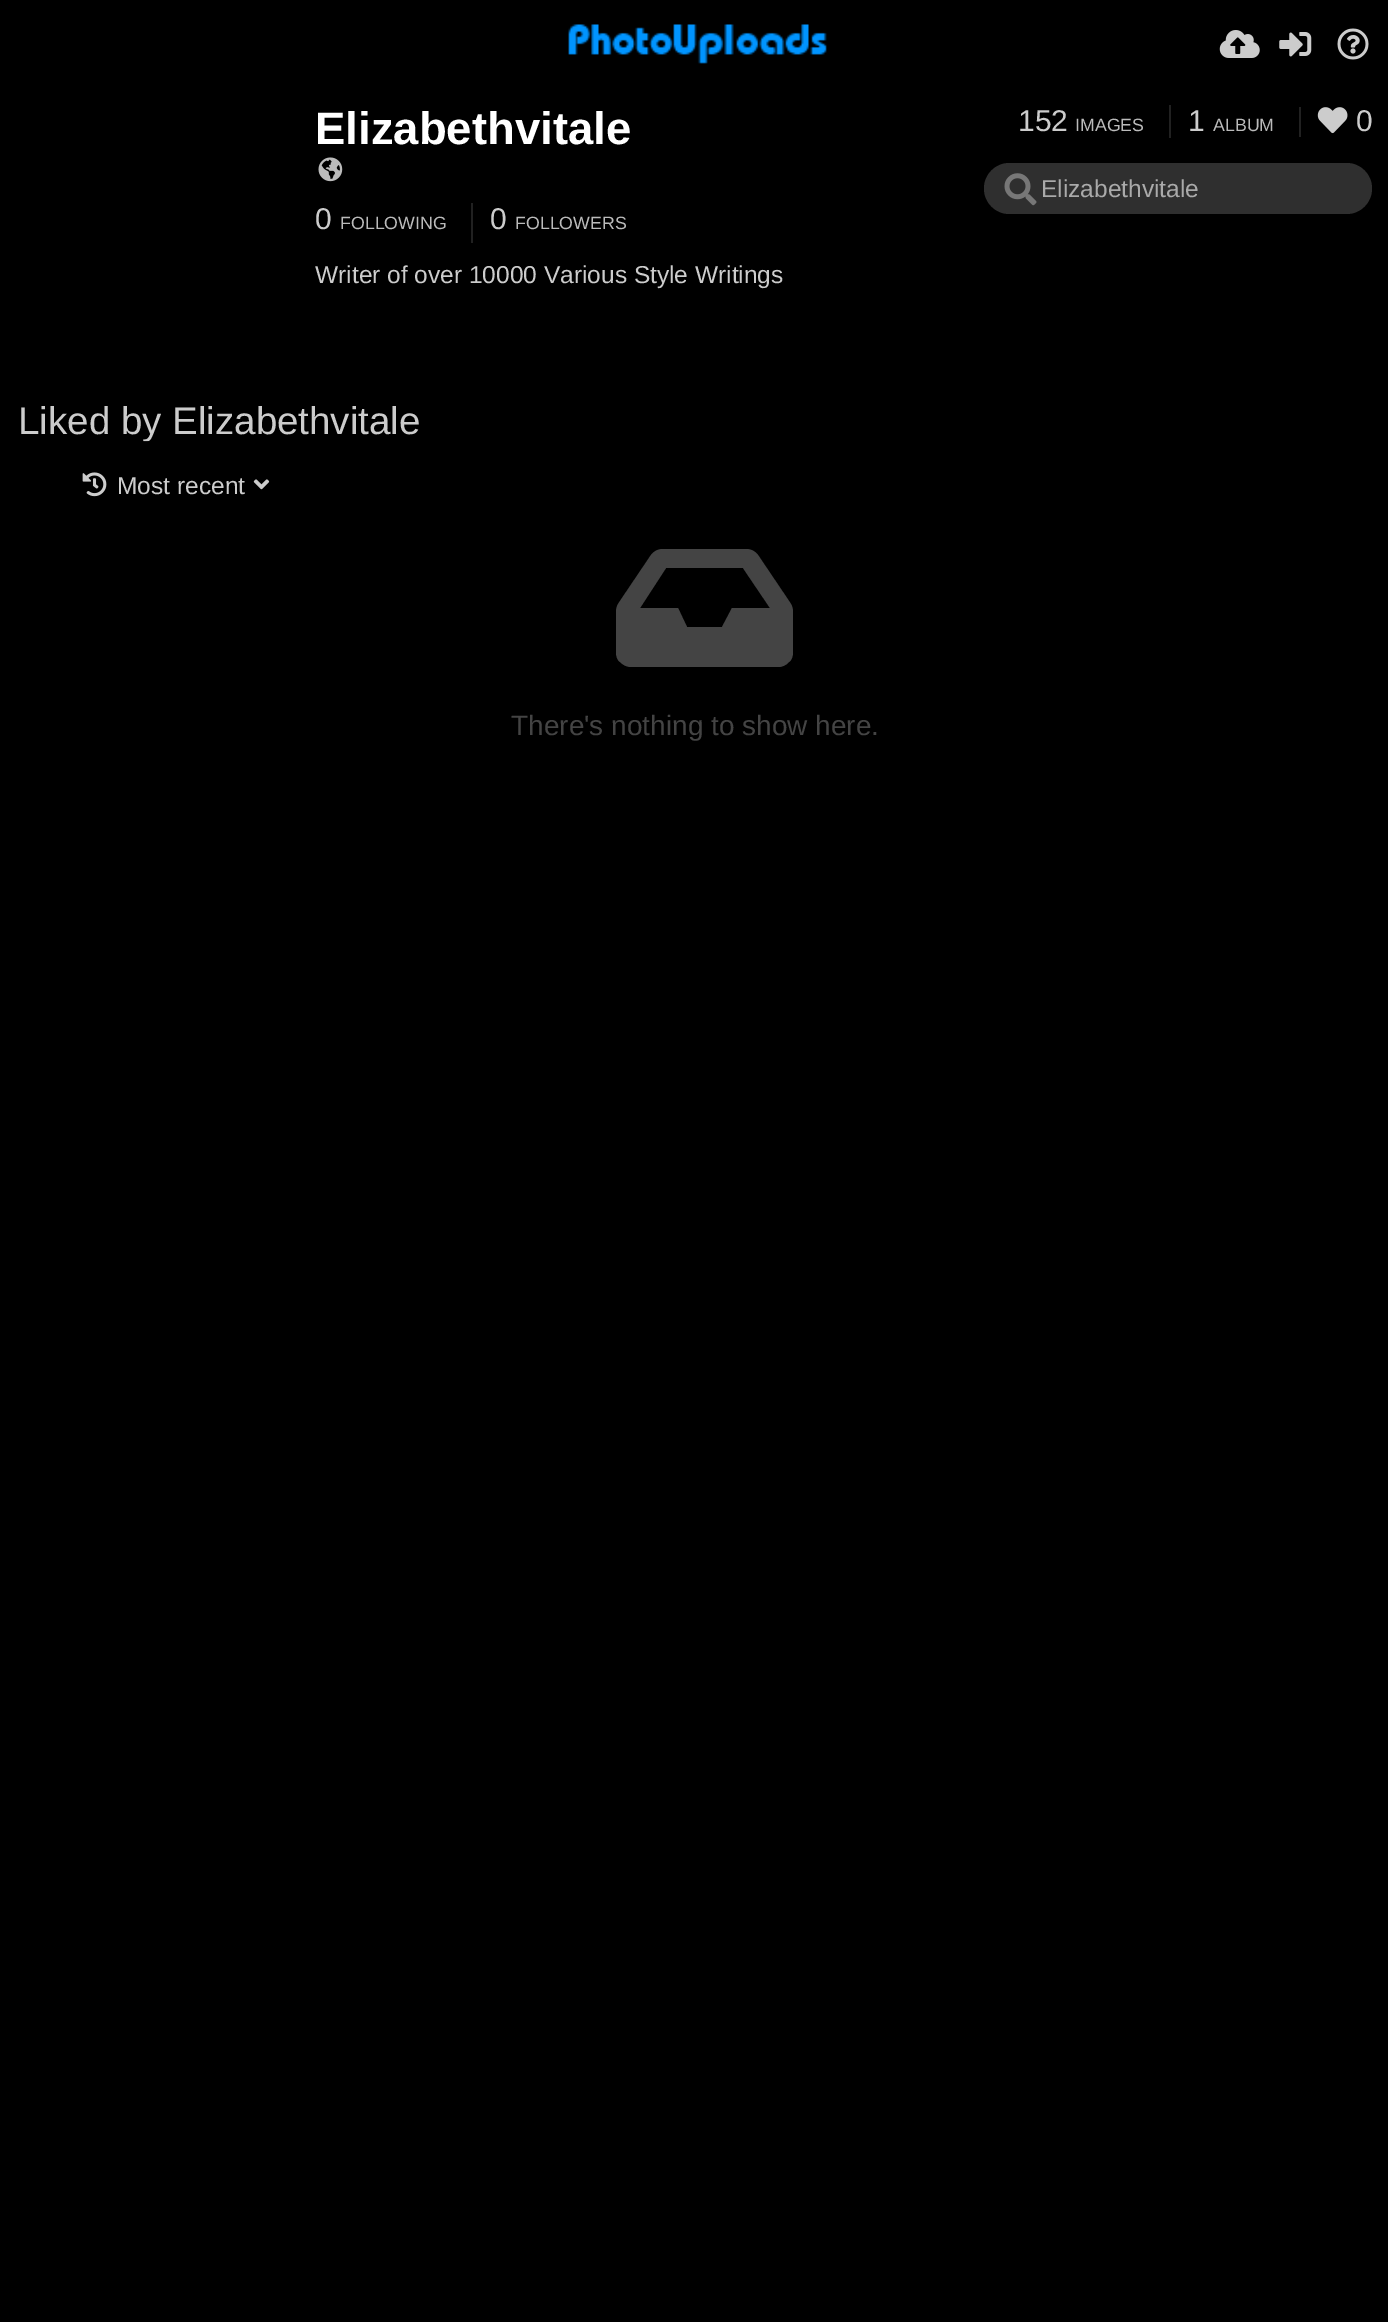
%!PS-Adobe-3.0
%%BoundingBox: 0 0 1388 2322
%%LanguageLevel: 3
%%Pages: 1
%%EndComments
%%BeginProlog
/setink { 3 { 255 div 3 1 roll } repeat setrgbcolor } def
/usefont { [ exch dup neg 0 0 3 -1 roll 0 0 ] selectfont } def
/drawtext { setink usefont moveto show } def
/fillbox { setink rectfill } def
/setalpha { dup .setfillconstantalpha .setstrokeconstantalpha } def
/rrect { 5 dict begin { /r /h /w /y /x } { exch def } forall
  x r add y moveto x w add y 2 copy h add r arct x w add y h add x 1 index r arct
  x y h add x y r arct x y 2 copy exch w add exch r arct closepath end } def
/drawimage { 5 dict begin { /h /w /y /x /name } { exch def } forall
  gsave x y translate w h scale
  w h 8 [w 0 0 h 0 0] name (r) file false 3 colorimage grestore end } def
%%EndProlog
%%BeginSetup
<< /PageSize [1388 2322] /PageUsesTransparency true >> setpagedevice
%%EndSetup
%%Page: 1 1
0 .pushpdf14devicefilter
0 2322 translate 1 -1 scale
4 setmiterlimit
0 0 1388 2322 0 0 0 fillbox
(assets/img1.rgb) 568 24 259 40 drawimage
(assets/img2.rgb) 1219 30 41 28 drawimage
(assets/img3.rgb) 1279 32 33 25 drawimage
(assets/img4.rgb) 1337 28 32 32 drawimage
(Elizabethvitale) 315 144 /LiberationSans-Bold 45.5 255 255 255 drawtext
(assets/img5.rgb) 318 157 25 25 drawimage
(0) 315 229 /LiberationSans-Regular 30 204 204 204 drawtext
(FOLLOWING) 340 229 /LiberationSans-Regular 17.75 187 187 187 drawtext
471 203 2 40 33 33 33 fillbox
(0) 490 229 /LiberationSans-Regular 30 204 204 204 drawtext
(FOLLOWERS) 515 229 /LiberationSans-Regular 17.75 187 187 187 drawtext
(Writer of over 10000 Various Style Writings) 315 283 /LiberationSans-Regular 24.5 204 204 204 drawtext
(152) 1018 131 /LiberationSans-Regular 30 204 204 204 drawtext
(IMAGES) 1075 131 /LiberationSans-Regular 17.75 187 187 187 drawtext
(1) 1188 131 /LiberationSans-Regular 30 204 204 204 drawtext
1169 105 2 33 33 33 33 fillbox
(ALBUM) 1213 131 /LiberationSans-Regular 17.75 187 187 187 drawtext
1299 107 2 30 33 33 33 fillbox
(assets/img6.rgb) 1317 107 31 27 drawimage
(0) 1356 131 /LiberationSans-Regular 30 204 204 204 drawtext
47 47 47 setink
984 163 388 51 25.5 rrect fill
(assets/img7.rgb) 1004 173 33 33 drawimage
(Elizabethvitale) 1041 197 /LiberationSans-Regular 24.5 170 170 170 drawtext
(Liked by Elizabethvitale) 18 434 /LiberationSans-Regular 38.5 204 204 204 drawtext
0.9 setalpha
142 441 7 1 0 0 0 fillbox
1 setalpha
(assets/img8.rgb) 82 472 25 25 drawimage
(Most recent) 117 494 /LiberationSans-Regular 24.5 204 204 204 drawtext
(assets/img9.rgb) 253 479 17 11 drawimage
68 68 68 setink
791 604 moveto 792 606 793 609 793 612 curveto 793 652 lineto 793 656 792 660 789 662 curveto 786 665 783 667 778 667 curveto 631 667 lineto 627 667 623 665 620 662 curveto 617 660 616 656 616 652 curveto 616 612 lineto 616 609 617 606 618 604 curveto 651 555 lineto 654 551 658 549 663 549 curveto 746 549 lineto 751 549 755 551 758 555 curveto closepath 666 568 moveto 640 608 lineto 678 608 lineto 687 627 lineto 722 627 lineto 732 608 lineto 770 608 lineto 743 568 lineto closepath fill
(There's nothing to show here.) 511 735 /LiberationSans-Regular 28 68 68 68 drawtext
.poppdf14devicefilter showpage
%%EOF
